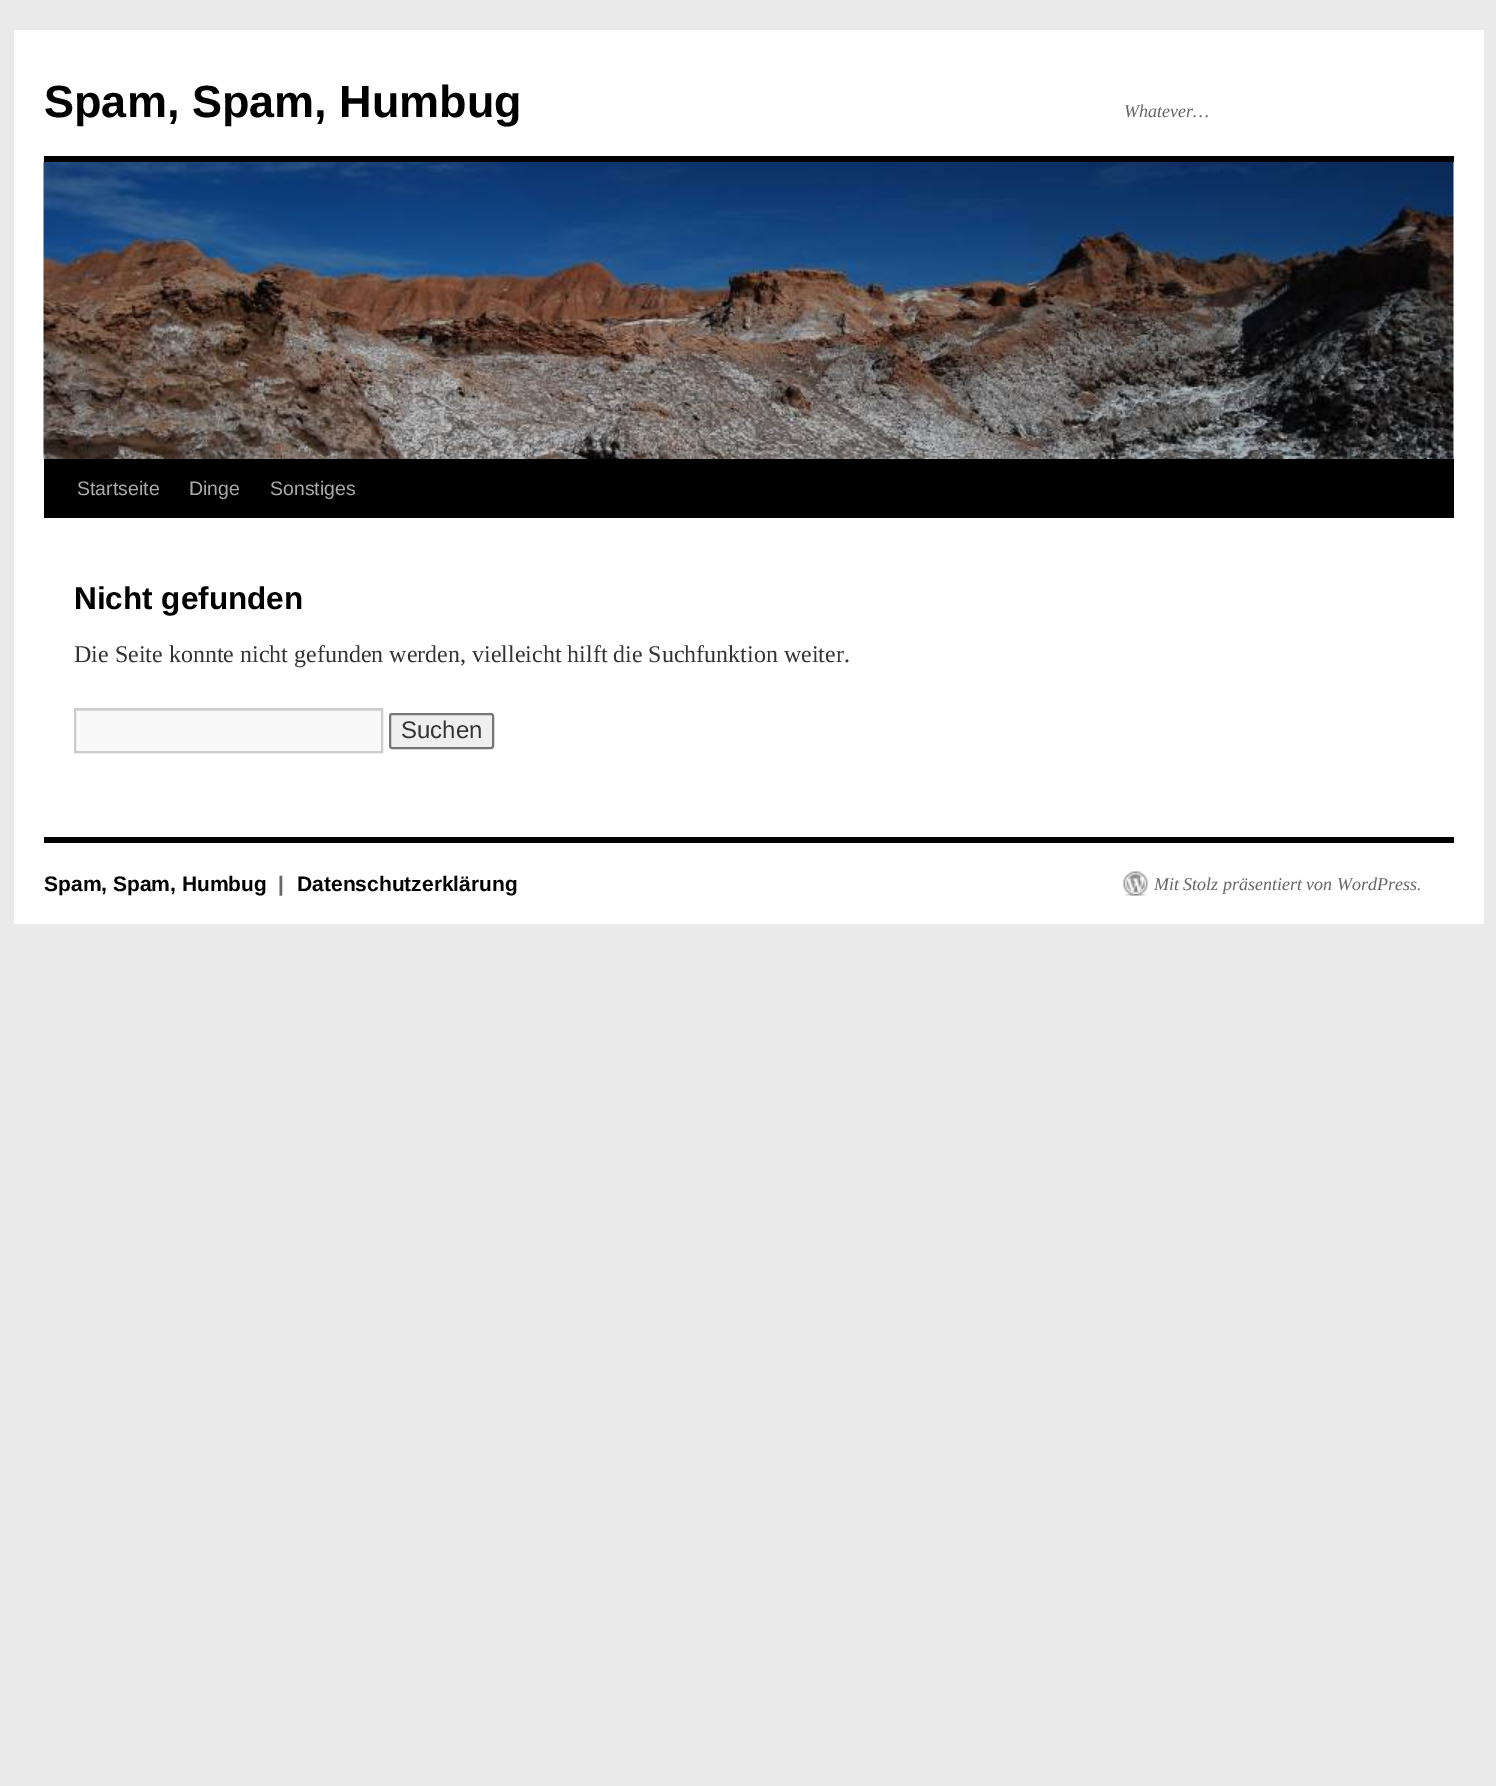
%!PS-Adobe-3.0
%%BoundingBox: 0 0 1496 1786
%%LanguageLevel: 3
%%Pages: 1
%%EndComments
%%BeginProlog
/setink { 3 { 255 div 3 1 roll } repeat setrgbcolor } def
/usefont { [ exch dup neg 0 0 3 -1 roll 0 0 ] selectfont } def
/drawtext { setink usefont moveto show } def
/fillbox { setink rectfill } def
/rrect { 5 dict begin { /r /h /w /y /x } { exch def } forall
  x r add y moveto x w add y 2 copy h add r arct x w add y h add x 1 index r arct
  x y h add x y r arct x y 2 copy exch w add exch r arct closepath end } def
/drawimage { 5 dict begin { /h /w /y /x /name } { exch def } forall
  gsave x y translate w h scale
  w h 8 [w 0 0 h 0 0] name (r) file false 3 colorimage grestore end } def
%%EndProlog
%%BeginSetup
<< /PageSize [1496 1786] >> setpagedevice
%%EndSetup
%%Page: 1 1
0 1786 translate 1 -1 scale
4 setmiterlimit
0 0 1496 1786 234 234 234 fillbox
14 30 1470 894 255 255 255 fillbox
(Spam, Spam, Humbug) 44 117 /LiberationSans-Bold 45 0 0 0 drawtext
(Whatever…) 1124 117 /LiberationSerif-Italic 18 102 102 102 drawtext
44 156 1410 6 0 0 0 fillbox
44 459 1410 59 0 0 0 fillbox
(assets/img1.rgb) 43 162 1411 297 drawimage
(Startseite) 77 495 /LiberationSans-Regular 19.5 170 170 170 drawtext
(Dinge) 189 495 /LiberationSans-Regular 19.5 170 170 170 drawtext
(Sonstiges) 270 495 /LiberationSans-Regular 19.5 170 170 170 drawtext
(Nicht gefunden) 74 609 /LiberationSans-Bold 31.5 0 0 0 drawtext
(Die Seite konnte nicht gefunden werden, vielleicht hilft die Suchfunktion weiter.) 74 662 /LiberationSerif-Regular 24 51 51 51 drawtext
76 711 305 40 249 249 249 fillbox
gsave
75 710 306 42 rectclip
224 224 224 setink
-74 561 moveto 530 561 lineto 530 900 lineto -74 900 lineto closepath 76 711 moveto 382 711 lineto 382 753 lineto 76 753 lineto closepath eofill
grestore
204 204 204 setink
2 setlinewidth
75 709 307 43 rectstroke
239 239 239 setink
390 714 103 34 2 rrect gsave fill grestore
118 118 118 setink
stroke
(Suchen) 401 738 /LiberationSans-Regular 24 51 51 51 drawtext
44 837 1410 6 0 0 0 fillbox
(Spam, Spam, Humbug) 44 891 /LiberationSans-Bold 21 0 0 0 drawtext
(|) 278 891 /LiberationSans-Bold 21 102 102 102 drawtext
(Datenschutzerklärung) 297 891 /LiberationSans-Bold 21 0 0 0 drawtext
(assets/img2.rgb) 1123 871 25 25 drawimage
(Mit Stolz präsentiert von WordPress.) 1154 890 /LiberationSerif-Italic 18 102 102 102 drawtext
showpage
%%EOF
